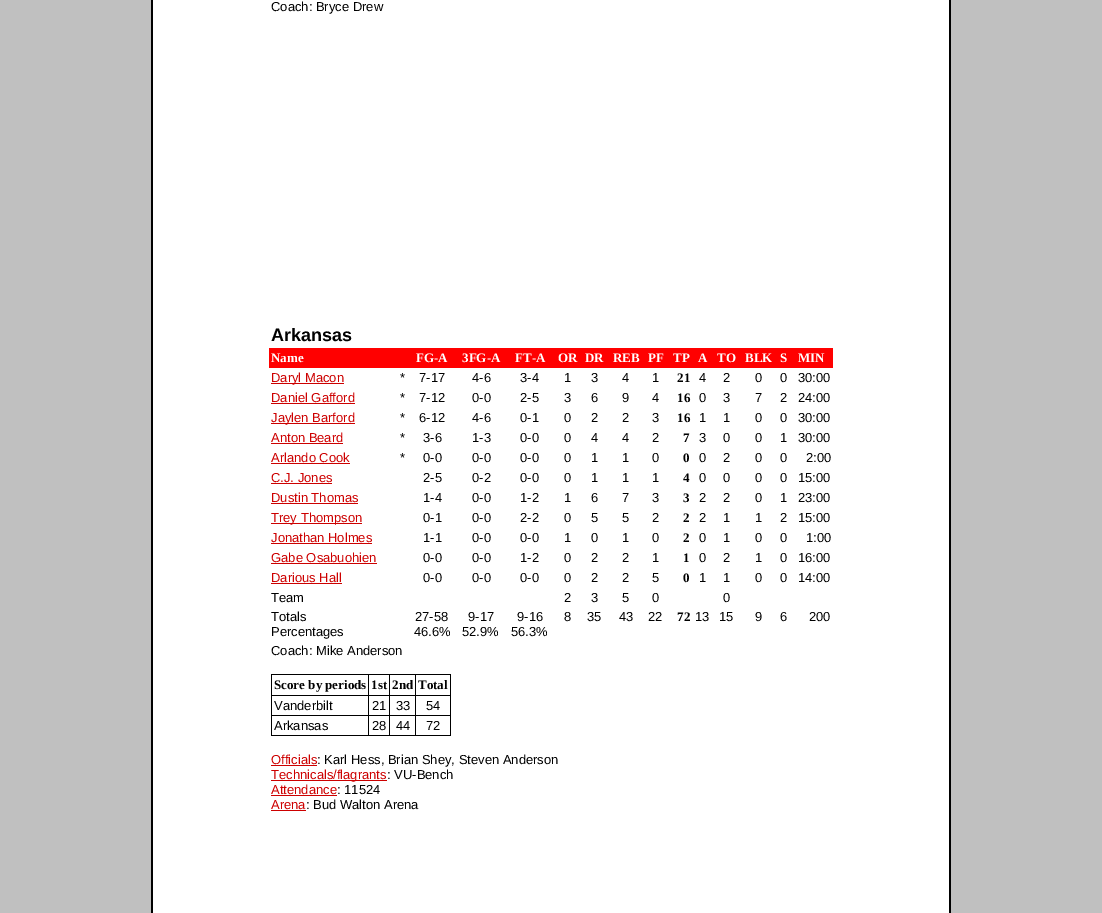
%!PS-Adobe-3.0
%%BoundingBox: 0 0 1102 913
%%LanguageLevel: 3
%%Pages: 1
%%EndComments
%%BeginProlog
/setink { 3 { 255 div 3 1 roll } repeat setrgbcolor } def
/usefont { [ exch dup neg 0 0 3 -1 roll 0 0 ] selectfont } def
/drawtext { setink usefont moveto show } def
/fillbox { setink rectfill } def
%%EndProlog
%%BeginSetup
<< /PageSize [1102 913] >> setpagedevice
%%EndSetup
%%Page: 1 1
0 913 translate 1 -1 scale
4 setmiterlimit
0 0 1102 913 192 192 192 fillbox
151 0 800 913 0 0 0 fillbox
153 0 796 913 255 255 255 fillbox
(Coach: Bryce Drew) 271 11 /LiberationSans-Regular 13 0 0 0 drawtext
269 348 564 20 255 0 0 fillbox
(Arkansas) 271 341 /LiberationSans-Bold 18 0 0 0 drawtext
(Name) 271 362 /LiberationSerif-Bold 13 255 255 255 drawtext
(FG-A) 416 362 /LiberationSerif-Bold 13 255 255 255 drawtext
(3FG-A) 462 362 /LiberationSerif-Bold 13 255 255 255 drawtext
(FT-A) 515 362 /LiberationSerif-Bold 13 255 255 255 drawtext
(OR) 558 362 /LiberationSerif-Bold 13 255 255 255 drawtext
(DR) 585 362 /LiberationSerif-Bold 13 255 255 255 drawtext
(REB) 613 362 /LiberationSerif-Bold 13 255 255 255 drawtext
(PF) 648 362 /LiberationSerif-Bold 13 255 255 255 drawtext
(TP) 673 362 /LiberationSerif-Bold 13 255 255 255 drawtext
(A) 698 362 /LiberationSerif-Bold 13 255 255 255 drawtext
(TO) 717 362 /LiberationSerif-Bold 13 255 255 255 drawtext
(BLK) 745 362 /LiberationSerif-Bold 13 255 255 255 drawtext
(S) 780 362 /LiberationSerif-Bold 13 255 255 255 drawtext
(MIN) 798 362 /LiberationSerif-Bold 13 255 255 255 drawtext
271 383 73 1 205 0 0 fillbox
(Daryl Macon) 271 382 /LiberationSans-Regular 13 205 0 0 drawtext
(*) 400 382 /LiberationSans-Regular 13 0 0 0 drawtext
(7-17) 419 382 /LiberationSans-Regular 13 0 0 0 drawtext
(4-6) 472 382 /LiberationSans-Regular 13 0 0 0 drawtext
(3-4) 520 382 /LiberationSans-Regular 13 0 0 0 drawtext
(1) 564 382 /LiberationSans-Regular 13 0 0 0 drawtext
(3) 591 382 /LiberationSans-Regular 13 0 0 0 drawtext
(4) 622 382 /LiberationSans-Regular 13 0 0 0 drawtext
(1) 652 382 /LiberationSans-Regular 13 0 0 0 drawtext
(21) 677 382 /LiberationSerif-Bold 13 0 0 0 drawtext
(4) 699 382 /LiberationSans-Regular 13 0 0 0 drawtext
(2) 723 382 /LiberationSans-Regular 13 0 0 0 drawtext
(0) 755 382 /LiberationSans-Regular 13 0 0 0 drawtext
(0) 780 382 /LiberationSans-Regular 13 0 0 0 drawtext
(30:00) 798 382 /LiberationSans-Regular 13 0 0 0 drawtext
(Daniel Gafford) 271 402 /LiberationSans-Regular 13 205 0 0 drawtext
271 403 84 1 205 0 0 fillbox
(*) 400 402 /LiberationSans-Regular 13 0 0 0 drawtext
(7-12) 419 402 /LiberationSans-Regular 13 0 0 0 drawtext
(0-0) 472 402 /LiberationSans-Regular 13 0 0 0 drawtext
(2-5) 520 402 /LiberationSans-Regular 13 0 0 0 drawtext
(3) 564 402 /LiberationSans-Regular 13 0 0 0 drawtext
(6) 591 402 /LiberationSans-Regular 13 0 0 0 drawtext
(9) 622 402 /LiberationSans-Regular 13 0 0 0 drawtext
(4) 652 402 /LiberationSans-Regular 13 0 0 0 drawtext
(16) 677 402 /LiberationSerif-Bold 13 0 0 0 drawtext
(0) 699 402 /LiberationSans-Regular 13 0 0 0 drawtext
(3) 723 402 /LiberationSans-Regular 13 0 0 0 drawtext
(7) 755 402 /LiberationSans-Regular 13 0 0 0 drawtext
(2) 780 402 /LiberationSans-Regular 13 0 0 0 drawtext
(24:00) 798 402 /LiberationSans-Regular 13 0 0 0 drawtext
271 423 84 1 205 0 0 fillbox
(Jaylen Barford) 271 422 /LiberationSans-Regular 13 205 0 0 drawtext
(*) 400 422 /LiberationSans-Regular 13 0 0 0 drawtext
(6-12) 419 422 /LiberationSans-Regular 13 0 0 0 drawtext
(4-6) 472 422 /LiberationSans-Regular 13 0 0 0 drawtext
(0-1) 520 422 /LiberationSans-Regular 13 0 0 0 drawtext
(0) 564 422 /LiberationSans-Regular 13 0 0 0 drawtext
(2) 591 422 /LiberationSans-Regular 13 0 0 0 drawtext
(2) 622 422 /LiberationSans-Regular 13 0 0 0 drawtext
(3) 652 422 /LiberationSans-Regular 13 0 0 0 drawtext
(16) 677 422 /LiberationSerif-Bold 13 0 0 0 drawtext
(1) 699 422 /LiberationSans-Regular 13 0 0 0 drawtext
(1) 723 422 /LiberationSans-Regular 13 0 0 0 drawtext
(0) 755 422 /LiberationSans-Regular 13 0 0 0 drawtext
(0) 780 422 /LiberationSans-Regular 13 0 0 0 drawtext
(30:00) 798 422 /LiberationSans-Regular 13 0 0 0 drawtext
(Anton Beard) 271 442 /LiberationSans-Regular 13 205 0 0 drawtext
271 443 72 1 205 0 0 fillbox
(*) 400 442 /LiberationSans-Regular 13 0 0 0 drawtext
(3-6) 423 442 /LiberationSans-Regular 13 0 0 0 drawtext
(1-3) 472 442 /LiberationSans-Regular 13 0 0 0 drawtext
(0-0) 520 442 /LiberationSans-Regular 13 0 0 0 drawtext
(0) 564 442 /LiberationSans-Regular 13 0 0 0 drawtext
(4) 591 442 /LiberationSans-Regular 13 0 0 0 drawtext
(4) 622 442 /LiberationSans-Regular 13 0 0 0 drawtext
(2) 652 442 /LiberationSans-Regular 13 0 0 0 drawtext
(7) 683 442 /LiberationSerif-Bold 13 0 0 0 drawtext
(3) 699 442 /LiberationSans-Regular 13 0 0 0 drawtext
(0) 723 442 /LiberationSans-Regular 13 0 0 0 drawtext
(0) 755 442 /LiberationSans-Regular 13 0 0 0 drawtext
(1) 780 442 /LiberationSans-Regular 13 0 0 0 drawtext
(30:00) 798 442 /LiberationSans-Regular 13 0 0 0 drawtext
(Arlando Cook) 271 462 /LiberationSans-Regular 13 205 0 0 drawtext
271 463 79 1 205 0 0 fillbox
(*) 400 462 /LiberationSans-Regular 13 0 0 0 drawtext
(0-0) 423 462 /LiberationSans-Regular 13 0 0 0 drawtext
(0-0) 472 462 /LiberationSans-Regular 13 0 0 0 drawtext
(0-0) 520 462 /LiberationSans-Regular 13 0 0 0 drawtext
(0) 564 462 /LiberationSans-Regular 13 0 0 0 drawtext
(1) 591 462 /LiberationSans-Regular 13 0 0 0 drawtext
(1) 622 462 /LiberationSans-Regular 13 0 0 0 drawtext
(0) 652 462 /LiberationSans-Regular 13 0 0 0 drawtext
(0) 683 462 /LiberationSerif-Bold 13 0 0 0 drawtext
(0) 699 462 /LiberationSans-Regular 13 0 0 0 drawtext
(2) 723 462 /LiberationSans-Regular 13 0 0 0 drawtext
(0) 755 462 /LiberationSans-Regular 13 0 0 0 drawtext
(0) 780 462 /LiberationSans-Regular 13 0 0 0 drawtext
(2:00) 806 462 /LiberationSans-Regular 13 0 0 0 drawtext
(C.J. Jones) 271 482 /LiberationSans-Regular 13 205 0 0 drawtext
271 483 61 1 205 0 0 fillbox
(2-5) 423 482 /LiberationSans-Regular 13 0 0 0 drawtext
(0-2) 472 482 /LiberationSans-Regular 13 0 0 0 drawtext
(0-0) 520 482 /LiberationSans-Regular 13 0 0 0 drawtext
(0) 564 482 /LiberationSans-Regular 13 0 0 0 drawtext
(1) 591 482 /LiberationSans-Regular 13 0 0 0 drawtext
(1) 622 482 /LiberationSans-Regular 13 0 0 0 drawtext
(1) 652 482 /LiberationSans-Regular 13 0 0 0 drawtext
(4) 683 482 /LiberationSerif-Bold 13 0 0 0 drawtext
(0) 699 482 /LiberationSans-Regular 13 0 0 0 drawtext
(0) 723 482 /LiberationSans-Regular 13 0 0 0 drawtext
(0) 755 482 /LiberationSans-Regular 13 0 0 0 drawtext
(0) 780 482 /LiberationSans-Regular 13 0 0 0 drawtext
(15:00) 798 482 /LiberationSans-Regular 13 0 0 0 drawtext
(Dustin Thomas) 271 502 /LiberationSans-Regular 13 205 0 0 drawtext
271 503 87 1 205 0 0 fillbox
(1-4) 423 502 /LiberationSans-Regular 13 0 0 0 drawtext
(0-0) 472 502 /LiberationSans-Regular 13 0 0 0 drawtext
(1-2) 520 502 /LiberationSans-Regular 13 0 0 0 drawtext
(1) 564 502 /LiberationSans-Regular 13 0 0 0 drawtext
(6) 591 502 /LiberationSans-Regular 13 0 0 0 drawtext
(7) 622 502 /LiberationSans-Regular 13 0 0 0 drawtext
(3) 652 502 /LiberationSans-Regular 13 0 0 0 drawtext
(3) 683 502 /LiberationSerif-Bold 13 0 0 0 drawtext
(2) 699 502 /LiberationSans-Regular 13 0 0 0 drawtext
(2) 723 502 /LiberationSans-Regular 13 0 0 0 drawtext
(0) 755 502 /LiberationSans-Regular 13 0 0 0 drawtext
(1) 780 502 /LiberationSans-Regular 13 0 0 0 drawtext
(23:00) 798 502 /LiberationSans-Regular 13 0 0 0 drawtext
271 523 91 1 205 0 0 fillbox
(Trey Thompson) 271 522 /LiberationSans-Regular 13 205 0 0 drawtext
(0-1) 423 522 /LiberationSans-Regular 13 0 0 0 drawtext
(0-0) 472 522 /LiberationSans-Regular 13 0 0 0 drawtext
(2-2) 520 522 /LiberationSans-Regular 13 0 0 0 drawtext
(0) 564 522 /LiberationSans-Regular 13 0 0 0 drawtext
(5) 591 522 /LiberationSans-Regular 13 0 0 0 drawtext
(5) 622 522 /LiberationSans-Regular 13 0 0 0 drawtext
(2) 652 522 /LiberationSans-Regular 13 0 0 0 drawtext
(2) 683 522 /LiberationSerif-Bold 13 0 0 0 drawtext
(2) 699 522 /LiberationSans-Regular 13 0 0 0 drawtext
(1) 723 522 /LiberationSans-Regular 13 0 0 0 drawtext
(1) 755 522 /LiberationSans-Regular 13 0 0 0 drawtext
(2) 780 522 /LiberationSans-Regular 13 0 0 0 drawtext
(15:00) 798 522 /LiberationSans-Regular 13 0 0 0 drawtext
(Jonathan Holmes) 271 542 /LiberationSans-Regular 13 205 0 0 drawtext
271 543 101 1 205 0 0 fillbox
(1-1) 423 542 /LiberationSans-Regular 13 0 0 0 drawtext
(0-0) 472 542 /LiberationSans-Regular 13 0 0 0 drawtext
(0-0) 520 542 /LiberationSans-Regular 13 0 0 0 drawtext
(1) 564 542 /LiberationSans-Regular 13 0 0 0 drawtext
(0) 591 542 /LiberationSans-Regular 13 0 0 0 drawtext
(1) 622 542 /LiberationSans-Regular 13 0 0 0 drawtext
(0) 652 542 /LiberationSans-Regular 13 0 0 0 drawtext
(2) 683 542 /LiberationSerif-Bold 13 0 0 0 drawtext
(0) 699 542 /LiberationSans-Regular 13 0 0 0 drawtext
(1) 723 542 /LiberationSans-Regular 13 0 0 0 drawtext
(0) 755 542 /LiberationSans-Regular 13 0 0 0 drawtext
(0) 780 542 /LiberationSans-Regular 13 0 0 0 drawtext
(1:00) 806 542 /LiberationSans-Regular 13 0 0 0 drawtext
(Gabe Osabuohien) 271 562 /LiberationSans-Regular 13 205 0 0 drawtext
271 563 106 1 205 0 0 fillbox
(0-0) 423 562 /LiberationSans-Regular 13 0 0 0 drawtext
(0-0) 472 562 /LiberationSans-Regular 13 0 0 0 drawtext
(1-2) 520 562 /LiberationSans-Regular 13 0 0 0 drawtext
(0) 564 562 /LiberationSans-Regular 13 0 0 0 drawtext
(2) 591 562 /LiberationSans-Regular 13 0 0 0 drawtext
(2) 622 562 /LiberationSans-Regular 13 0 0 0 drawtext
(1) 652 562 /LiberationSans-Regular 13 0 0 0 drawtext
(1) 683 562 /LiberationSerif-Bold 13 0 0 0 drawtext
(0) 699 562 /LiberationSans-Regular 13 0 0 0 drawtext
(2) 723 562 /LiberationSans-Regular 13 0 0 0 drawtext
(1) 755 562 /LiberationSans-Regular 13 0 0 0 drawtext
(0) 780 562 /LiberationSans-Regular 13 0 0 0 drawtext
(16:00) 798 562 /LiberationSans-Regular 13 0 0 0 drawtext
(Darious Hall) 271 582 /LiberationSans-Regular 13 205 0 0 drawtext
271 583 71 1 205 0 0 fillbox
(0-0) 423 582 /LiberationSans-Regular 13 0 0 0 drawtext
(0-0) 472 582 /LiberationSans-Regular 13 0 0 0 drawtext
(0-0) 520 582 /LiberationSans-Regular 13 0 0 0 drawtext
(0) 564 582 /LiberationSans-Regular 13 0 0 0 drawtext
(2) 591 582 /LiberationSans-Regular 13 0 0 0 drawtext
(2) 622 582 /LiberationSans-Regular 13 0 0 0 drawtext
(5) 652 582 /LiberationSans-Regular 13 0 0 0 drawtext
(0) 683 582 /LiberationSerif-Bold 13 0 0 0 drawtext
(1) 699 582 /LiberationSans-Regular 13 0 0 0 drawtext
(1) 723 582 /LiberationSans-Regular 13 0 0 0 drawtext
(0) 755 582 /LiberationSans-Regular 13 0 0 0 drawtext
(0) 780 582 /LiberationSans-Regular 13 0 0 0 drawtext
(14:00) 798 582 /LiberationSans-Regular 13 0 0 0 drawtext
(Team) 271 602 /LiberationSans-Regular 13 0 0 0 drawtext
(2) 564 602 /LiberationSans-Regular 13 0 0 0 drawtext
(3) 591 602 /LiberationSans-Regular 13 0 0 0 drawtext
(5) 622 602 /LiberationSans-Regular 13 0 0 0 drawtext
(0) 652 602 /LiberationSans-Regular 13 0 0 0 drawtext
(0) 723 602 /LiberationSans-Regular 13 0 0 0 drawtext
(Totals) 271 621 /LiberationSans-Regular 13 0 0 0 drawtext
(Percentages) 271 636 /LiberationSans-Regular 13 0 0 0 drawtext
(27-58) 415 621 /LiberationSans-Regular 13 0 0 0 drawtext
(46.6%) 414 636 /LiberationSans-Regular 13 0 0 0 drawtext
(9-17) 468 621 /LiberationSans-Regular 13 0 0 0 drawtext
(52.9%) 462 636 /LiberationSans-Regular 13 0 0 0 drawtext
(9-16) 517 621 /LiberationSans-Regular 13 0 0 0 drawtext
(56.3%) 511 636 /LiberationSans-Regular 13 0 0 0 drawtext
(8) 564 621 /LiberationSans-Regular 13 0 0 0 drawtext
(35) 587 621 /LiberationSans-Regular 13 0 0 0 drawtext
(43) 619 621 /LiberationSans-Regular 13 0 0 0 drawtext
(22) 648 621 /LiberationSans-Regular 13 0 0 0 drawtext
(72) 677 621 /LiberationSerif-Bold 13 0 0 0 drawtext
(13) 695 621 /LiberationSans-Regular 13 0 0 0 drawtext
(15) 719 621 /LiberationSans-Regular 13 0 0 0 drawtext
(9) 755 621 /LiberationSans-Regular 13 0 0 0 drawtext
(6) 780 621 /LiberationSans-Regular 13 0 0 0 drawtext
(200) 809 621 /LiberationSans-Regular 13 0 0 0 drawtext
(Coach: Mike Anderson) 271 655 /LiberationSans-Regular 13 0 0 0 drawtext
271 674 180 62 0 0 0 fillbox
272 675 96 20 255 255 255 fillbox
(Score by periods) 274 689 /LiberationSerif-Bold 13 0 0 0 drawtext
369 675 20 20 255 255 255 fillbox
(1st) 371 689 /LiberationSerif-Bold 13 0 0 0 drawtext
390 675 25 20 255 255 255 fillbox
(2nd) 392 689 /LiberationSerif-Bold 13 0 0 0 drawtext
416 675 34 20 255 255 255 fillbox
(Total) 418 689 /LiberationSerif-Bold 13 0 0 0 drawtext
272 696 96 19 255 255 255 fillbox
(Vanderbilt) 274 710 /LiberationSans-Regular 13 0 0 0 drawtext
369 696 20 19 255 255 255 fillbox
(21) 372 710 /LiberationSans-Regular 13 0 0 0 drawtext
390 696 25 19 255 255 255 fillbox
(33) 396 710 /LiberationSans-Regular 13 0 0 0 drawtext
416 696 34 19 255 255 255 fillbox
(54) 426 710 /LiberationSans-Regular 13 0 0 0 drawtext
272 716 96 19 255 255 255 fillbox
(Arkansas) 274 730 /LiberationSans-Regular 13 0 0 0 drawtext
369 716 20 19 255 255 255 fillbox
(28) 372 730 /LiberationSans-Regular 13 0 0 0 drawtext
390 716 25 19 255 255 255 fillbox
(44) 396 730 /LiberationSans-Regular 13 0 0 0 drawtext
416 716 34 19 255 255 255 fillbox
(72) 426 730 /LiberationSans-Regular 13 0 0 0 drawtext
(Officials) 271 764 /LiberationSans-Regular 13 205 0 0 drawtext
(: Karl Hess, Brian Shey, Steven Anderson) 317 764 /LiberationSans-Regular 13 0 0 0 drawtext
271 765 46 1 205 0 0 fillbox
271 780 116 1 205 0 0 fillbox
(Technicals/flagrants) 271 779 /LiberationSans-Regular 13 205 0 0 drawtext
(: VU-Bench) 387 779 /LiberationSans-Regular 13 0 0 0 drawtext
(Attendance) 271 794 /LiberationSans-Regular 13 205 0 0 drawtext
271 795 66 1 205 0 0 fillbox
(: 11524) 337 794 /LiberationSans-Regular 13 0 0 0 drawtext
(Arena) 271 809 /LiberationSans-Regular 13 205 0 0 drawtext
271 810 35 1 205 0 0 fillbox
(: Bud Walton Arena) 306 809 /LiberationSans-Regular 13 0 0 0 drawtext
showpage
%%EOF
